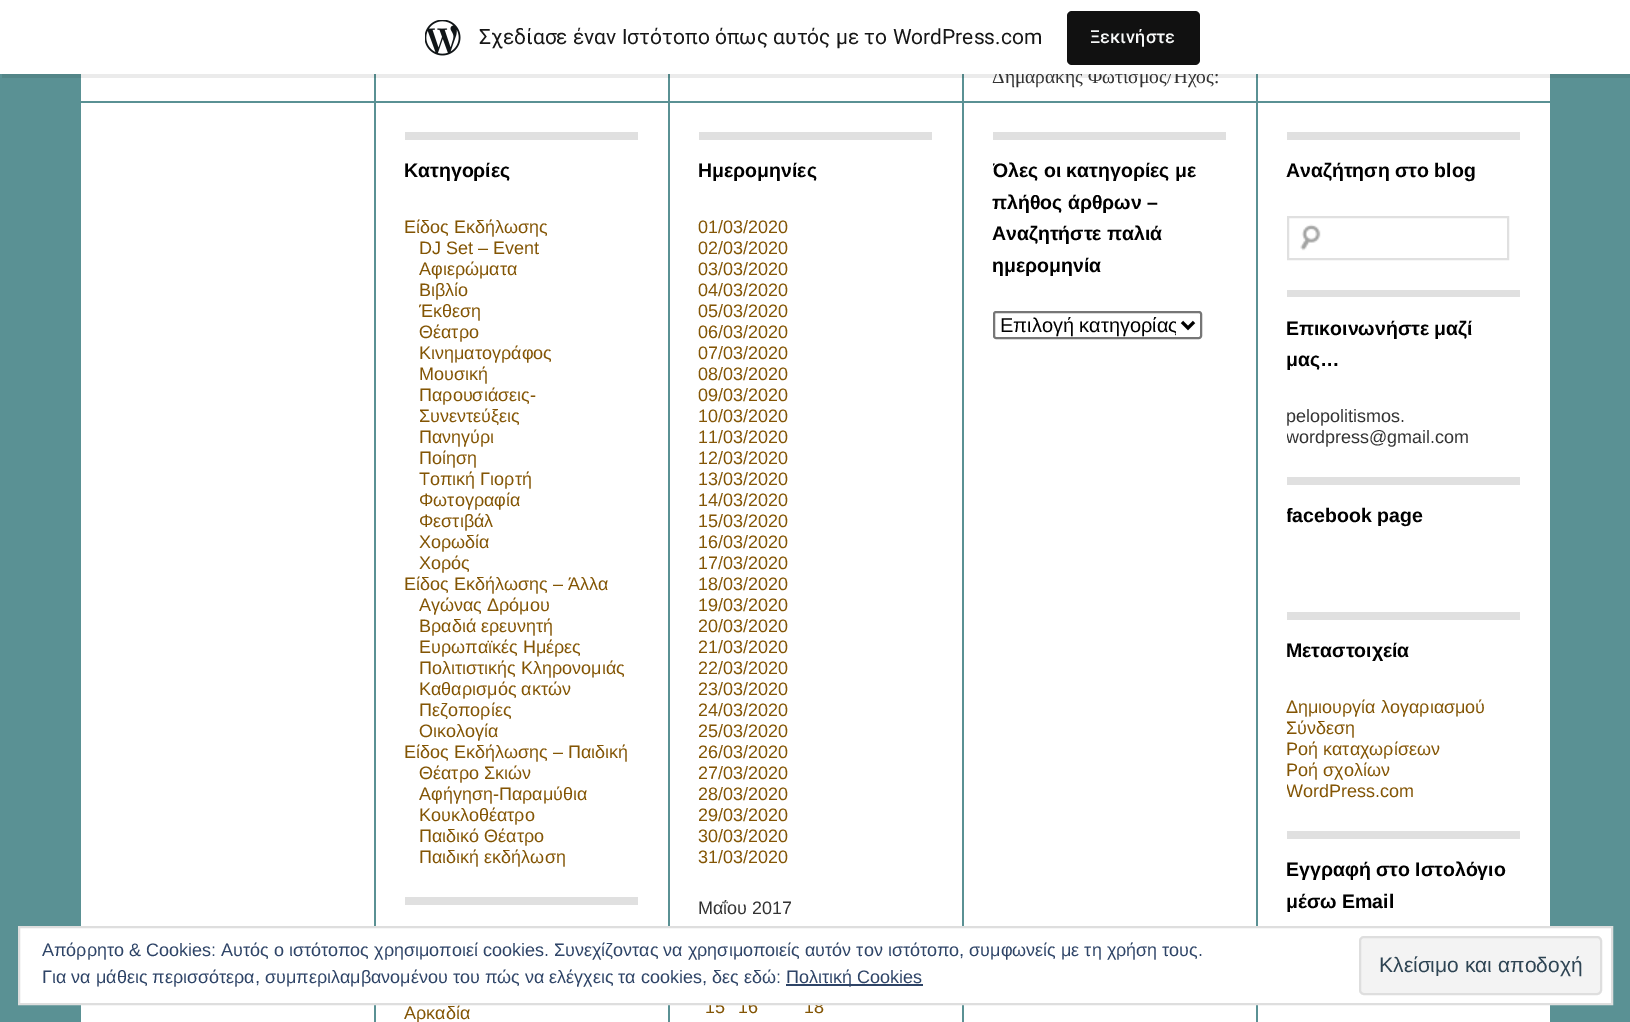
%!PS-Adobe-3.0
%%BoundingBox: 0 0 1630 1022
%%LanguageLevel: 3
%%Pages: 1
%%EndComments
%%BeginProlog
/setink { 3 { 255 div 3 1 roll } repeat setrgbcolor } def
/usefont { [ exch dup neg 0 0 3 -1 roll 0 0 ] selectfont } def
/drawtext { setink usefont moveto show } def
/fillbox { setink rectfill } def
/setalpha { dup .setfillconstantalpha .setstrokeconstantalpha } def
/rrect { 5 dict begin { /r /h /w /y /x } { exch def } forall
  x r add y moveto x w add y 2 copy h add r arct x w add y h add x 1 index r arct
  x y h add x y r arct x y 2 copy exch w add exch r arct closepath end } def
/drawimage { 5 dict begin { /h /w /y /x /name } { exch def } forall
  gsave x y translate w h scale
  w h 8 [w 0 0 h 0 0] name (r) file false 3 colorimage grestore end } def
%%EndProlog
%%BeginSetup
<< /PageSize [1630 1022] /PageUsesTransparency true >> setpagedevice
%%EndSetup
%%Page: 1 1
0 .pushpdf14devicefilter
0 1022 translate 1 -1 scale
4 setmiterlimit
0 0 1630 1022 90 145 148 fillbox
81 74 1469 948 255 255 255 fillbox
374 74 2 27 90 145 148 fillbox
668 74 2 27 90 145 148 fillbox
962 74 2 27 90 145 148 fillbox
1256 74 2 27 90 145 148 fillbox
0.08 setalpha
0 0 0 setink
2 74 moveto 2 78 lineto 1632 78 lineto 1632 5 lineto 1630 5 lineto 1630 74 lineto closepath fill
1 setalpha
(Δημαράκης Φωτισμός/Ήχος:) 992 83 /LiberationSerif-Regular 19.5 51 51 51 drawtext
0 0 1630 74 255 255 255 fillbox
(assets/img1.rgb) 425 20 36 36 drawimage
(Σχεδίασε έναν Ιστότοπο όπως αυτός με το WordPress.com) 479 44 /Roboto-Regular 21 23 23 23 drawtext
17 17 17 setink
1067 11 133 54 5 rrect fill
(Ξεκινήστε) 1090 43 /Roboto-Medium 18 246 247 247 drawtext
81 101 1470 2 90 145 148 fillbox
374 102 2 920 90 145 148 fillbox
668 102 2 920 90 145 148 fillbox
405 132 233 8 224 224 224 fillbox
(Κατηγορίες) 404 177 /LiberationSans-Bold 19.5 0 0 0 drawtext
(Είδος Εκδήλωσης) 404 233 /LiberationSans-Regular 18 131 85 4 drawtext
(DJ Set – Event) 419 254 /LiberationSans-Regular 18 131 85 4 drawtext
(Αφιερώματα) 419 275 /LiberationSans-Regular 18 131 85 4 drawtext
(Βιβλίο) 419 296 /LiberationSans-Regular 18 131 85 4 drawtext
(Έκθεση) 419 317 /LiberationSans-Regular 18 131 85 4 drawtext
(Θέατρο) 419 338 /LiberationSans-Regular 18 131 85 4 drawtext
(Κινηματογράφος) 419 359 /LiberationSans-Regular 18 131 85 4 drawtext
(Μουσική) 419 380 /LiberationSans-Regular 18 131 85 4 drawtext
(Παρουσιάσεις-) 419 401 /LiberationSans-Regular 18 131 85 4 drawtext
(Συνεντεύξεις) 419 422 /LiberationSans-Regular 18 131 85 4 drawtext
(Πανηγύρι) 419 443 /LiberationSans-Regular 18 131 85 4 drawtext
(Ποίηση) 419 464 /LiberationSans-Regular 18 131 85 4 drawtext
(Τοπική Γιορτή) 419 485 /LiberationSans-Regular 18 131 85 4 drawtext
(Φωτογραφία) 419 506 /LiberationSans-Regular 18 131 85 4 drawtext
(Φεστιβάλ) 419 527 /LiberationSans-Regular 18 131 85 4 drawtext
(Χορωδία) 419 548 /LiberationSans-Regular 18 131 85 4 drawtext
(Χορός) 419 569 /LiberationSans-Regular 18 131 85 4 drawtext
(Είδος Εκδήλωσης – Άλλα) 404 590 /LiberationSans-Regular 18 131 85 4 drawtext
(Αγώνας Δρόμου) 419 611 /LiberationSans-Regular 18 131 85 4 drawtext
(Βραδιά ερευνητή) 419 632 /LiberationSans-Regular 18 131 85 4 drawtext
(Ευρωπαϊκές Ημέρες) 419 653 /LiberationSans-Regular 18 131 85 4 drawtext
(Πολιτιστικής Κληρονομιάς) 419 674 /LiberationSans-Regular 18 131 85 4 drawtext
(Καθαρισμός ακτών) 419 695 /LiberationSans-Regular 18 131 85 4 drawtext
(Πεζοπορίες) 419 716 /LiberationSans-Regular 18 131 85 4 drawtext
(Οικολογία) 419 737 /LiberationSans-Regular 18 131 85 4 drawtext
(Είδος Εκδήλωσης – Παιδική) 404 758 /LiberationSans-Regular 18 131 85 4 drawtext
(Θέατρο Σκιών) 419 779 /LiberationSans-Regular 18 131 85 4 drawtext
(Αφήγηση-Παραμύθια) 419 800 /LiberationSans-Regular 18 131 85 4 drawtext
(Κουκλοθέατρο) 419 821 /LiberationSans-Regular 18 131 85 4 drawtext
(Παιδικό Θέατρο) 419 842 /LiberationSans-Regular 18 131 85 4 drawtext
(Παιδική εκδήλωση) 419 863 /LiberationSans-Regular 18 131 85 4 drawtext
405 897 233 8 224 224 224 fillbox
(Αρκαδία) 404 1019 /LiberationSans-Regular 18 131 85 4 drawtext
962 102 2 920 90 145 148 fillbox
699 132 233 8 224 224 224 fillbox
(Ημερομηνίες) 698 177 /LiberationSans-Bold 19.5 0 0 0 drawtext
(01/03/2020) 698 233 /LiberationSans-Regular 18 131 85 4 drawtext
(02/03/2020) 698 254 /LiberationSans-Regular 18 131 85 4 drawtext
(03/03/2020) 698 275 /LiberationSans-Regular 18 131 85 4 drawtext
(04/03/2020) 698 296 /LiberationSans-Regular 18 131 85 4 drawtext
(05/03/2020) 698 317 /LiberationSans-Regular 18 131 85 4 drawtext
(06/03/2020) 698 338 /LiberationSans-Regular 18 131 85 4 drawtext
(07/03/2020) 698 359 /LiberationSans-Regular 18 131 85 4 drawtext
(08/03/2020) 698 380 /LiberationSans-Regular 18 131 85 4 drawtext
(09/03/2020) 698 401 /LiberationSans-Regular 18 131 85 4 drawtext
(10/03/2020) 698 422 /LiberationSans-Regular 18 131 85 4 drawtext
(11/03/2020) 698 443 /LiberationSans-Regular 18 131 85 4 drawtext
(12/03/2020) 698 464 /LiberationSans-Regular 18 131 85 4 drawtext
(13/03/2020) 698 485 /LiberationSans-Regular 18 131 85 4 drawtext
(14/03/2020) 698 506 /LiberationSans-Regular 18 131 85 4 drawtext
(15/03/2020) 698 527 /LiberationSans-Regular 18 131 85 4 drawtext
(16/03/2020) 698 548 /LiberationSans-Regular 18 131 85 4 drawtext
(17/03/2020) 698 569 /LiberationSans-Regular 18 131 85 4 drawtext
(18/03/2020) 698 590 /LiberationSans-Regular 18 131 85 4 drawtext
(19/03/2020) 698 611 /LiberationSans-Regular 18 131 85 4 drawtext
(20/03/2020) 698 632 /LiberationSans-Regular 18 131 85 4 drawtext
(21/03/2020) 698 653 /LiberationSans-Regular 18 131 85 4 drawtext
(22/03/2020) 698 674 /LiberationSans-Regular 18 131 85 4 drawtext
(23/03/2020) 698 695 /LiberationSans-Regular 18 131 85 4 drawtext
(24/03/2020) 698 716 /LiberationSans-Regular 18 131 85 4 drawtext
(25/03/2020) 698 737 /LiberationSans-Regular 18 131 85 4 drawtext
(26/03/2020) 698 758 /LiberationSans-Regular 18 131 85 4 drawtext
(27/03/2020) 698 779 /LiberationSans-Regular 18 131 85 4 drawtext
(28/03/2020) 698 800 /LiberationSans-Regular 18 131 85 4 drawtext
(29/03/2020) 698 821 /LiberationSans-Regular 18 131 85 4 drawtext
(30/03/2020) 698 842 /LiberationSans-Regular 18 131 85 4 drawtext
(31/03/2020) 698 863 /LiberationSans-Regular 18 131 85 4 drawtext
(Μαΐου 2017) 698 914 /LiberationSans-Regular 18 51 51 51 drawtext
(15) 705 1013 /LiberationSans-Regular 18 131 85 4 drawtext
(16) 738 1013 /LiberationSans-Regular 18 131 85 4 drawtext
(18) 804 1013 /LiberationSans-Regular 18 131 85 4 drawtext
1256 102 2 920 90 145 148 fillbox
993 132 233 8 224 224 224 fillbox
gsave
993 132 233 207 rectclip
(Όλες οι κατηγορίες με) 992 177 /LiberationSans-Bold 19.5 0 0 0 drawtext
grestore
(πλήθος άρθρων –) 992 209 /LiberationSans-Bold 19.5 0 0 0 drawtext
(Αναζητήστε παλιά) 992 240 /LiberationSans-Bold 19.5 0 0 0 drawtext
(ημερομηνία) 992 272 /LiberationSans-Bold 19.5 0 0 0 drawtext
118 118 118 setink
2 setlinewidth
994 312 207 26 2 rrect stroke
0 0 0 setink
3 setlinewidth
1182 322 moveto 1188 328 lineto 1194 322 lineto stroke
gsave
1001 312 175 26 rectclip
(Επιλογή κατηγορίας) 1000 332 /LiberationSans-Regular 20 0 0 0 drawtext
grestore
1287 132 233 8 224 224 224 fillbox
(Αναζήτηση στο blog) 1286 177 /LiberationSans-Bold 19.5 0 0 0 drawtext
(assets/img2.rgb) 1300 224 21 27 drawimage
224 224 224 setink
2 setlinewidth
1288 217 220 42 rectstroke
1287 290 233 7 224 224 224 fillbox
(Επικοινωνήστε μαζί) 1286 335 /LiberationSans-Bold 19.5 0 0 0 drawtext
(μας…) 1286 366 /LiberationSans-Bold 19.5 0 0 0 drawtext
(pelopolitismos.) 1286 422 /LiberationSans-Regular 18 51 51 51 drawtext
gsave
1287 290 233 157 rectclip
(wordpress@gmail.com) 1286 443 /LiberationSans-Regular 18 51 51 51 drawtext
grestore
1287 477 233 8 224 224 224 fillbox
gsave
1287 477 233 105 rectclip
(facebook page) 1286 522 /LiberationSans-Bold 19.5 0 0 0 drawtext
grestore
1287 612 233 8 224 224 224 fillbox
(Μεταστοιχεία) 1286 657 /LiberationSans-Bold 19.5 0 0 0 drawtext
(Δημιουργία λογαριασμού) 1286 713 /LiberationSans-Regular 18 131 85 4 drawtext
(Σύνδεση) 1286 734 /LiberationSans-Regular 18 131 85 4 drawtext
(Ροή καταχωρίσεων) 1286 755 /LiberationSans-Regular 18 131 85 4 drawtext
(Ροή σχολίων) 1286 776 /LiberationSans-Regular 18 131 85 4 drawtext
gsave
1287 612 233 189 rectclip
(WordPress.com) 1286 797 /LiberationSans-Regular 18 131 85 4 drawtext
grestore
1287 831 233 8 224 224 224 fillbox
(Εγγραφή στο Ιστολόγιο) 1286 876 /LiberationSans-Bold 19.5 0 0 0 drawtext
(μέσω Email) 1286 908 /LiberationSans-Bold 19.5 0 0 0 drawtext
255 255 255 setink
19 927 moveto 1612 927 lineto 1612 1004 lineto 19 1004 lineto closepath gsave fill grestore
222 222 222 setink
stroke
(Απόρρητο & Cookies: Αυτός ο ιστότοπος χρησιμοποιεί cookies. Συνεχίζοντας να χρησιμοποιείς αυτόν τον ιστότοπο, συμφωνείς με τη χρήση τους.) 42 956 /LiberationSans-Regular 18 46 68 103 drawtext
(Για να μάθεις περισσότερα, συμπεριλαμβανομένου του πώς να ελέγχεις τα cookies, δες εδώ:) 42 983 /LiberationSans-Regular 18 46 68 103 drawtext
786 984 137 2 46 68 103 fillbox
(Πολιτική Cookies) 786 983 /LiberationSans-Regular 18 46 68 103 drawtext
243 243 243 setink
1360 937 241 57 4 rrect gsave fill grestore
222 222 222 setink
stroke
(Κλείσιμο και αποδοχή) 1379 972 /LiberationSans-Regular 21 46 68 83 drawtext
.poppdf14devicefilter showpage
%%EOF
